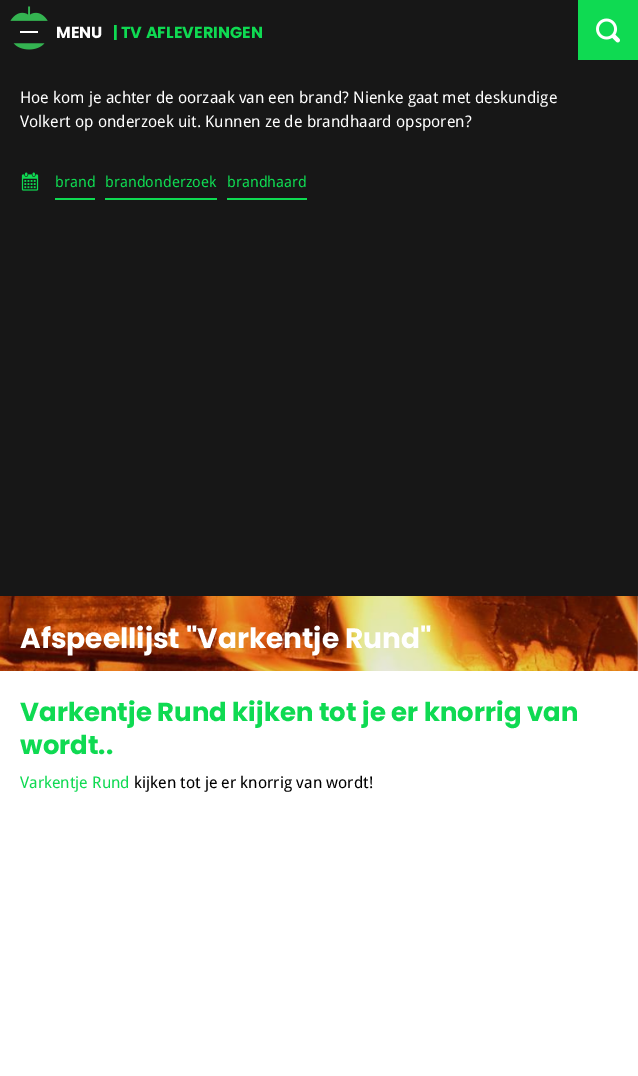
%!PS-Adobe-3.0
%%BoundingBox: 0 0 638 1076
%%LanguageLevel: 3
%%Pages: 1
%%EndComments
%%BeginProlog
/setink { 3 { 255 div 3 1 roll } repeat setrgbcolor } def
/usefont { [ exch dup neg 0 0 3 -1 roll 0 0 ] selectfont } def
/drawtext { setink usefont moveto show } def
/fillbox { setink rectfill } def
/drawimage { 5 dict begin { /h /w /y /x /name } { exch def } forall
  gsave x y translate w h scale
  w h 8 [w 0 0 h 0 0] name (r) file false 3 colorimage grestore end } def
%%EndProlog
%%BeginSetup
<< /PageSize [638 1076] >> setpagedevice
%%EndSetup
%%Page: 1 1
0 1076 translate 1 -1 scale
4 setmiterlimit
0 0 638 1076 255 255 255 fillbox
(assets/img1.rgb) 0 596 638 75 drawimage
0 0 578 55 23 23 23 fillbox
(assets/img2.rgb) 10 6 38 44 drawimage
(MENU) 56 38 /Poppins-Bold 16 255 255 255 drawtext
20 31 18 2 255 255 255 fillbox
(| TV AFLEVERINGEN) 113 38 /Poppins-Bold 16 15 218 82 drawtext
0 55 638 541 23 23 23 fillbox
578 0 60 60 15 218 82 fillbox
(assets/img3.rgb) 596 18 24 25 drawimage
(Hoe kom je achter de oorzaak van een brand? Nienke gaat met deskundige) 20 103 /DroidSans-Regular 16 255 255 255 drawtext
(Volkert op onderzoek uit. Kunnen ze de brandhaard opsporen?) 20 127 /DroidSans-Regular 16 255 255 255 drawtext
(assets/img4.rgb) 21 172 18 19 drawimage
55 198 40 2 15 218 82 fillbox
(brand) 55 187 /DroidSans-Regular 15 15 218 82 drawtext
105 198 112 2 15 218 82 fillbox
(brandonderzoek) 105 187 /DroidSans-Regular 15 15 218 82 drawtext
227 198 80 2 15 218 82 fillbox
(brandhaard) 227 187 /DroidSans-Regular 15 15 218 82 drawtext
(Afspeellijst "Varkentje Rund") 20 648 /Poppins-Bold 28 255 255 255 drawtext
(Varkentje Rund kijken tot je er knorrig van) 20 721 /Poppins-Bold 26 15 218 82 drawtext
(wordt..) 20 754 /Poppins-Bold 26 15 218 82 drawtext
(Varkentje Rund) 20 788 /DroidSans-Regular 16 15 218 82 drawtext
(kijken tot je er knorrig van wordt!) 134 788 /DroidSans-Regular 16 0 0 0 drawtext
showpage
%%EOF
